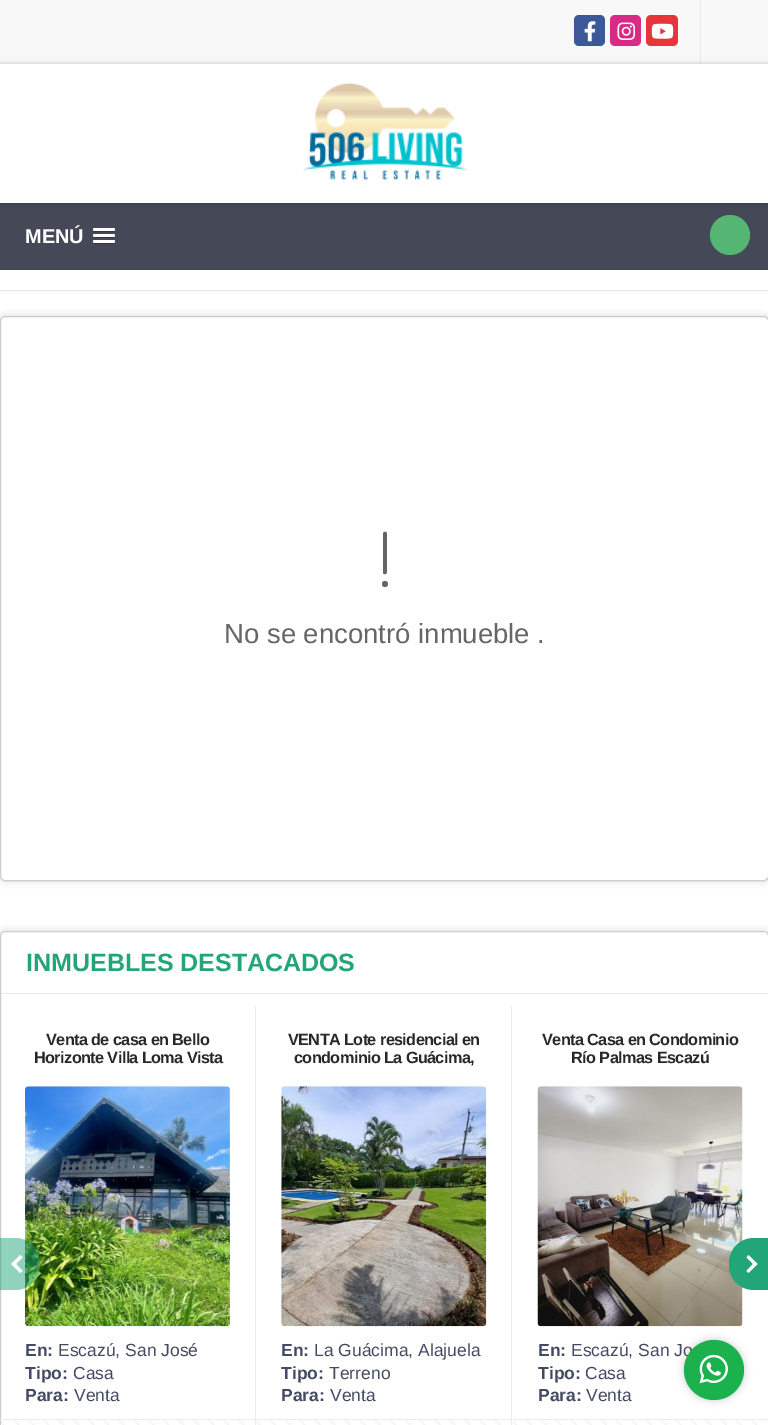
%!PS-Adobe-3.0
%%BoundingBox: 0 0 768 1425
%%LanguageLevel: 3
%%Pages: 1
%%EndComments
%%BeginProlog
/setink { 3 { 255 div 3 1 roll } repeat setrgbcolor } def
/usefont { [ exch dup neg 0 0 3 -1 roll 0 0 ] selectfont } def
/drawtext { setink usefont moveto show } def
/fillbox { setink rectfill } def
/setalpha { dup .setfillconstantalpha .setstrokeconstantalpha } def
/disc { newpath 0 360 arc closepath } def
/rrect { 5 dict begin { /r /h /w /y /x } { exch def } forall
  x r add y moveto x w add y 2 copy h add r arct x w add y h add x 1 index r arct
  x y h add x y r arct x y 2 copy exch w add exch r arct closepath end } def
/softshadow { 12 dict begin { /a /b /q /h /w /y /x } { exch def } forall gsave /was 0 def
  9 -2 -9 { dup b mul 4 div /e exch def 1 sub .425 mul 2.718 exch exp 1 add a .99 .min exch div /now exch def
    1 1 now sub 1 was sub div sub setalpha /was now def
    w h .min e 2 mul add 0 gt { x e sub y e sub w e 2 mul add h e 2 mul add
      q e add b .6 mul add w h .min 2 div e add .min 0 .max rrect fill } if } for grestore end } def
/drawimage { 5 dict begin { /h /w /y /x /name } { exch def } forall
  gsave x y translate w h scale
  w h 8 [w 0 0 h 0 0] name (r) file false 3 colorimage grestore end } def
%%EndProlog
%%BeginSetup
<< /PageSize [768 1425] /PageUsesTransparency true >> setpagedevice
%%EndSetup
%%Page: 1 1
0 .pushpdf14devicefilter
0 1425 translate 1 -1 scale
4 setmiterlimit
0 0 768 1425 255 255 255 fillbox
0 0 768 64 248 248 248 fillbox
700 0 1 64 233 233 233 fillbox
59 89 152 setink
574 15 31 31 5 rrect fill
(assets/img1.rgb) 584 21 12 21 drawimage
217 43 134 setink
610 15 31 31 5 rrect fill
(assets/img2.rgb) 617 22 18 18 drawimage
231 53 59 setink
646 15 32 31 5 rrect fill
(assets/img3.rgb) 651 23 23 16 drawimage
0 203 768 67 69 73 87 fillbox
0 0 0 setink
0 64 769 139 0 2.5 0.2 softshadow
0 64 768 139 255 255 255 fillbox
(assets/img4.rgb) 302 82 166 99 drawimage
(MENÚ) 25 243 /LiberationSans-Bold 20 255 255 255 drawtext
52 55 65 setink
93 230 moveto 92 232.5 97 232 97.5 232 curveto 110.5 232 lineto 110.5 232 117 232.5 114.5 229.5 curveto 114 230 lineto closepath fill
255 255 255 setink
93 228 22 3 1.5 rrect fill
52 55 65 setink
93 236 moveto 92.5 238.5 97 238 97.5 238 curveto 110.5 238 lineto 111 238 116.5 238.5 115 235.5 curveto 114 236 lineto closepath fill
255 255 255 setink
93 234 22 3 1.5 rrect fill
52 55 65 setink
93 242.5 moveto 92.5 244.5 96.5 244 97.5 244 curveto 110.5 244 lineto 111 244 116 244.5 115 242 curveto 114 242.5 lineto 112 242.5 93.5 242.5 93 242.5 curveto closepath fill
255 255 255 setink
93 240 22 3 1.5 rrect fill
85 181 115 setink
730 235 20 disc fill
0 290 768 1 230 230 230 fillbox
0 0 0 setink
0 316 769 565 5 4 0.15 softshadow
255 255 255 setink
0.5 316.5 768 564 4.5 rrect gsave fill grestore
205 205 205 setink
stroke
102 102 102 setink
387 534 moveto 387 531 383 531 383 534 curveto 383 573 lineto 384 575 386 574 387 573 curveto closepath 385 587 moveto 389 587 389 581 385 581 curveto 381 581 381 587 385 587 curveto closepath fill
(No se encontró inmueble .) 224 643 /LiberationSans-Regular 27.5 102 102 102 drawtext
0 0 0 setink
0 931 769 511 5 4 0.15 softshadow
255 255 255 setink
0.5 931.5 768 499 4.5 rrect gsave fill grestore
205 205 205 setink
stroke
1 993 767 1 232 232 232 fillbox
(INMUEBLES DESTACADOS) 26 971 /LiberationSans-Bold 25 35 165 122 drawtext
255 1006 1 419 235 235 235 fillbox
/LiberationSans-Bold 16.25 usefont
40 40 40 setink
46 1045 moveto -0.6 0 (Venta de casa en Bello) ashow
34 1063 moveto -0.6 0 (Horizonte Villa Loma Vista) ashow
(assets/img5.rgb) 25 1086 205 241 drawimage
(En:) 25 1356 /LiberationSans-Bold 17.5 67 74 98 drawtext
(Escazú, San José) 58 1356 /LiberationSans-Regular 17.5 67 74 98 drawtext
(Tipo:) 25 1379 /LiberationSans-Bold 17.5 67 74 98 drawtext
(Casa) 73 1379 /LiberationSans-Regular 17.5 67 74 98 drawtext
(Para:) 25 1401 /LiberationSans-Bold 17.5 67 74 98 drawtext
(Venta) 74 1401 /LiberationSans-Regular 17.5 67 74 98 drawtext
(assets/img6.rgb) 0 1420 255 5 drawimage
0 1419 255 1 235 235 235 fillbox
511 1006 1 419 235 235 235 fillbox
/LiberationSans-Bold 16.25 usefont
40 40 40 setink
288 1045 moveto -0.6 0 (VENTA Lote residencial en) ashow
294 1063 moveto -0.6 0 (condominio La Guácima,) ashow
(assets/img7.rgb) 281 1086 206 241 drawimage
(En:) 281 1356 /LiberationSans-Bold 17.5 67 74 98 drawtext
(La Guácima, Alajuela) 314 1356 /LiberationSans-Regular 17.5 67 74 98 drawtext
(Tipo:) 281 1379 /LiberationSans-Bold 17.5 67 74 98 drawtext
(Terreno) 329 1379 /LiberationSans-Regular 17.5 67 74 98 drawtext
(Para:) 281 1401 /LiberationSans-Bold 17.5 67 74 98 drawtext
(Venta) 330 1401 /LiberationSans-Regular 17.5 67 74 98 drawtext
(assets/img8.rgb) 256 1420 255 5 drawimage
256 1419 255 1 235 235 235 fillbox
/LiberationSans-Bold 16.25 usefont
40 40 40 setink
542 1045 moveto -0.6 0 (Venta Casa en Condominio) ashow
571 1063 moveto -0.6 0 (Río Palmas Escazú) ashow
(assets/img9.rgb) 537 1086 206 241 drawimage
(En:) 538 1356 /LiberationSans-Bold 17.5 67 74 98 drawtext
(Escazú, San Jo) 571 1356 /LiberationSans-Regular 17.5 67 74 98 drawtext
(Tipo:) 538 1379 /LiberationSans-Bold 17.5 67 74 98 drawtext
(Casa) 585 1379 /LiberationSans-Regular 17.5 67 74 98 drawtext
(Para:) 538 1401 /LiberationSans-Bold 17.5 67 74 98 drawtext
(Venta) 586 1401 /LiberationSans-Regular 17.5 67 74 98 drawtext
(assets/img10.rgb) 513 1420 255 5 drawimage
513 1419 255 1 235 235 235 fillbox
0.5 setalpha
35 165 122 setink
0 1238 moveto 15 1238 lineto 29 1238 40 1249 40 1263 curveto 40 1265 lineto 40 1279 29 1290 15 1290 curveto 0 1290 lineto closepath fill
1 setalpha
255 255 255 setink
22.5 1271 moveto 20.5 1273 lineto 11 1264 lineto 20.5 1255 lineto 22.5 1257.5 lineto 16 1264 lineto closepath eofill
35 165 122 setink
754 1238 moveto 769 1238 lineto 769 1290 lineto 754 1290 lineto 740 1290 729 1279 729 1265 curveto 729 1263 lineto 729 1249 740 1238 754 1238 curveto closepath fill
255 255 255 setink
746.5 1271 moveto 748.5 1273 lineto 757.5 1264 lineto 748.5 1255 lineto 746.5 1257.5 lineto 753 1264 lineto closepath eofill
0 0 0 setink
684 1340 60 60 30 4 0.2 softshadow
27 178 78 setink
714 1370 30 disc fill
(assets/img11.rgb) 699 1354 29 30 drawimage
.poppdf14devicefilter showpage
%%EOF
